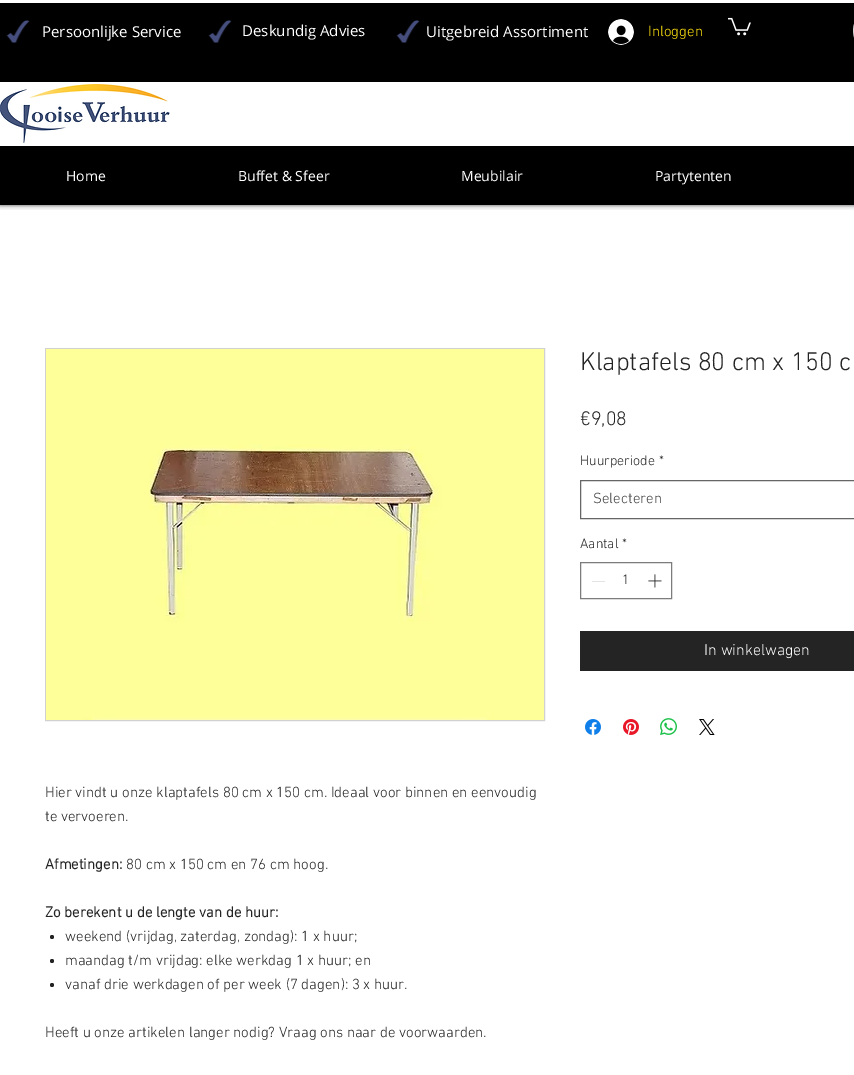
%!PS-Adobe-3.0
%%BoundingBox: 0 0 854 1075
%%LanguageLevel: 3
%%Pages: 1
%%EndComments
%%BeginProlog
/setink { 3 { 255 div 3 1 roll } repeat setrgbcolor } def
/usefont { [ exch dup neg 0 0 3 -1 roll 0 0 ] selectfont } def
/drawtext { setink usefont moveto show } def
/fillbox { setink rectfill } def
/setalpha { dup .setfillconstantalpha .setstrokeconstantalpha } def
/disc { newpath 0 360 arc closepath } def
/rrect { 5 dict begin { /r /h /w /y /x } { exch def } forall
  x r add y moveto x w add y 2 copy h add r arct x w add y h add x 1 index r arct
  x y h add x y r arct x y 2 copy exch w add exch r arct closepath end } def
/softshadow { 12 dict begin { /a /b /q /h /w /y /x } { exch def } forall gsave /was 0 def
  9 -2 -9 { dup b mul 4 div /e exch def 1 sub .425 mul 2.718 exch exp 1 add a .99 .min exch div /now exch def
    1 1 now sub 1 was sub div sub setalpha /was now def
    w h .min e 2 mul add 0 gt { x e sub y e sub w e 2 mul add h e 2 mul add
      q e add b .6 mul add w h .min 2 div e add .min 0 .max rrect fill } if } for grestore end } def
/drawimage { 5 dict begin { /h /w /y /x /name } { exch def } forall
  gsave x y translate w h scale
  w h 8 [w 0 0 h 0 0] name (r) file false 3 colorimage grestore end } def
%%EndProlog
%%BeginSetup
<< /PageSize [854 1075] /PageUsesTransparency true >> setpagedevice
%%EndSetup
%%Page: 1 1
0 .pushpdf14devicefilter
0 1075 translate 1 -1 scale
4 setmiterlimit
0 0 854 1075 255 255 255 fillbox
gsave
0 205 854 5 rectclip
0 0 0 setink
0 0 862 205 0 2.5 0.7 softshadow
grestore
0 3 854 79 0 0 0 fillbox
(assets/img1.rgb) 6 20 24 23 drawimage
(Persoonlijke Service) 42 37 /OpenSans-Regular 15 255 255 255 drawtext
(assets/img1.rgb) 208 20 24 23 drawimage
(Deskundig Advies) 242 36 /OpenSans-Regular 15 255 255 255 drawtext
(assets/img1.rgb) 396 20 24 23 drawimage
(Uitgebreid Assortiment) 426 37 /OpenSans-Regular 15 255 255 255 drawtext
(assets/img2.rgb) 608 19 26 26 drawimage
(Inloggen) 648 36 /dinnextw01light-Light 15 255 227 15 drawtext
(assets/img3.rgb) 728 17 23 19 drawimage
(assets/img4.rgb) 853 24 1 14 drawimage
(assets/img5.rgb) 0 84 170 59 drawimage
0 146 854 59 0 0 0 fillbox
(Home) 66 181 /OpenSans-Regular 14 255 255 255 drawtext
(Buffet & Sfeer) 238 181 /OpenSans-Regular 14 255 255 255 drawtext
(Meubilair) 461 181 /OpenSans-Regular 14 255 255 255 drawtext
(Partytenten) 655 181 /OpenSans-Regular 14 255 255 255 drawtext
(Klaptafels 80 cm x 150 c) 580 370 /dinnextw01light-Light 26 36 36 36 drawtext
(€9,08) 580 425 /dinnextw01light-Light 20 36 36 36 drawtext
(Huurperiode) 580 465 /dinnextw01light-Light 14 36 36 36 drawtext
(*) 659 465 /dinnextw01light-Light 14 36 36 36 drawtext
102 102 102 setink
580.5 480.5 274 38 rectstroke
(Selecteren) 593 503 /dinnextw01light-Light 15 68 68 68 drawtext
(Aantal) 580 548 /dinnextw01light-Light 14 36 36 36 drawtext
(*) 622 548 /dinnextw01light-Light 14 36 36 36 drawtext
124 124 124 setink
580.5 562.5 91 36 rectstroke
592 581 13 1 227 227 227 fillbox
(1) 622 584 /dinnextw01light-Light 14 36 36 36 drawtext
(assets/img6.rgb) 648 574 14 14 drawimage
580 631 274 40 36 36 36 fillbox
(In winkelwagen) 704 655 /dinnextw01light-Light 16 255 255 255 drawtext
(assets/img7.rgb) 585 719 16 16 drawimage
(assets/img8.rgb) 623 719 16 16 drawimage
(assets/img9.rgb) 660 718 17 17 drawimage
(assets/img10.rgb) 699 719 16 16 drawimage
209 209 209 setink
45.5 348.5 499 372 rectstroke
(assets/img11.rgb) 46 349 498 371 drawimage
(Hier vindt u onze klaptafels 80 cm x 150 cm. Ideaal voor binnen en eenvoudig) 45 797 /dinnextw01light-Light 15 36 36 36 drawtext
(te vervoeren.) 45 821 /dinnextw01light-Light 15 36 36 36 drawtext
(Afmetingen:) 45 869 /dinnextw01light-Bold 15 36 36 36 drawtext
(80 cm x 150 cm en 76 cm hoog.) 126 869 /dinnextw01light-Light 15 36 36 36 drawtext
(Zo berekent u de lengte van de huur:) 45 917 /dinnextw01light-Bold 15 36 36 36 drawtext
52 937 2 disc fill
(weekend \(vrijdag, zaterdag, zondag\): 1 x huur;) 65 941 /dinnextw01light-Light 15 36 36 36 drawtext
52 961 2 disc fill
(maandag t/m vrijdag: elke werkdag 1 x huur; en) 65 965 /dinnextw01light-Light 15 36 36 36 drawtext
52 985 2 disc fill
(vanaf drie werkdagen of per week \(7 dagen\): 3 x huur.) 65 989 /dinnextw01light-Light 15 36 36 36 drawtext
(Heeft u onze artikelen langer nodig? Vraag ons naar de voorwaarden.) 45 1037 /dinnextw01light-Light 15 36 36 36 drawtext
.poppdf14devicefilter showpage
%%EOF
